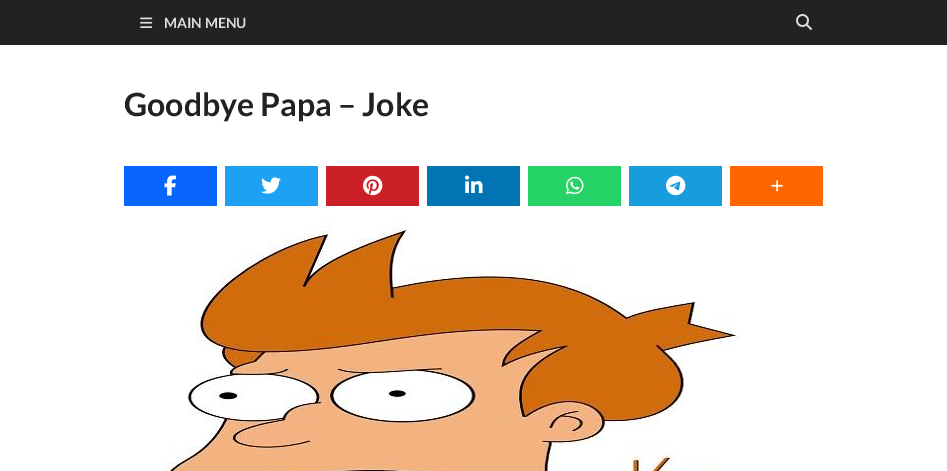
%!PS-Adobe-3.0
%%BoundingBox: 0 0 947 471
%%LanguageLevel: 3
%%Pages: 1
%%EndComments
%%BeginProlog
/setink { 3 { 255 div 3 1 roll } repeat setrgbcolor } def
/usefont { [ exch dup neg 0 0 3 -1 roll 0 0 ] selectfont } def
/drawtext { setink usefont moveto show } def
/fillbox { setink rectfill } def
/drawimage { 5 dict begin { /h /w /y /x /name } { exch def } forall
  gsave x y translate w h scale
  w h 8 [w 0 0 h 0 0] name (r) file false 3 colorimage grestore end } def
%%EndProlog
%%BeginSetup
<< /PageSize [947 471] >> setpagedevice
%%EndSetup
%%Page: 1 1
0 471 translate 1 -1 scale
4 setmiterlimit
0 0 947 471 255 255 255 fillbox
0 0 947 45 34 34 34 fillbox
(assets/img1.rgb) 140 17 13 11 drawimage
(MAIN MENU) 164 28 /Lato-Bold 14 221 221 221 drawtext
(assets/img2.rgb) 796 14 16 16 drawimage
(Goodbye Papa – Joke) 124 116 /Lato-Bold 32 34 34 34 drawtext
124 166 93 40 8 102 255 fillbox
(assets/img3.rgb) 164 175 12 21 drawimage
225 166 93 40 29 161 242 fillbox
(assets/img4.rgb) 261 177 20 17 drawimage
326 166 93 40 203 32 39 fillbox
(assets/img5.rgb) 363 175 20 21 drawimage
427 166 93 40 2 116 179 fillbox
(assets/img6.rgb) 465 175 18 18 drawimage
528 166 93 40 37 211 102 fillbox
(assets/img7.rgb) 566 176 18 19 drawimage
629 166 93 40 23 156 222 fillbox
(assets/img8.rgb) 666 175 20 21 drawimage
730 166 93 40 255 101 0 fillbox
(assets/img9.rgb) 771 180 12 12 drawimage
(assets/img10.rgb) 164 222 576 249 drawimage
showpage
%%EOF
